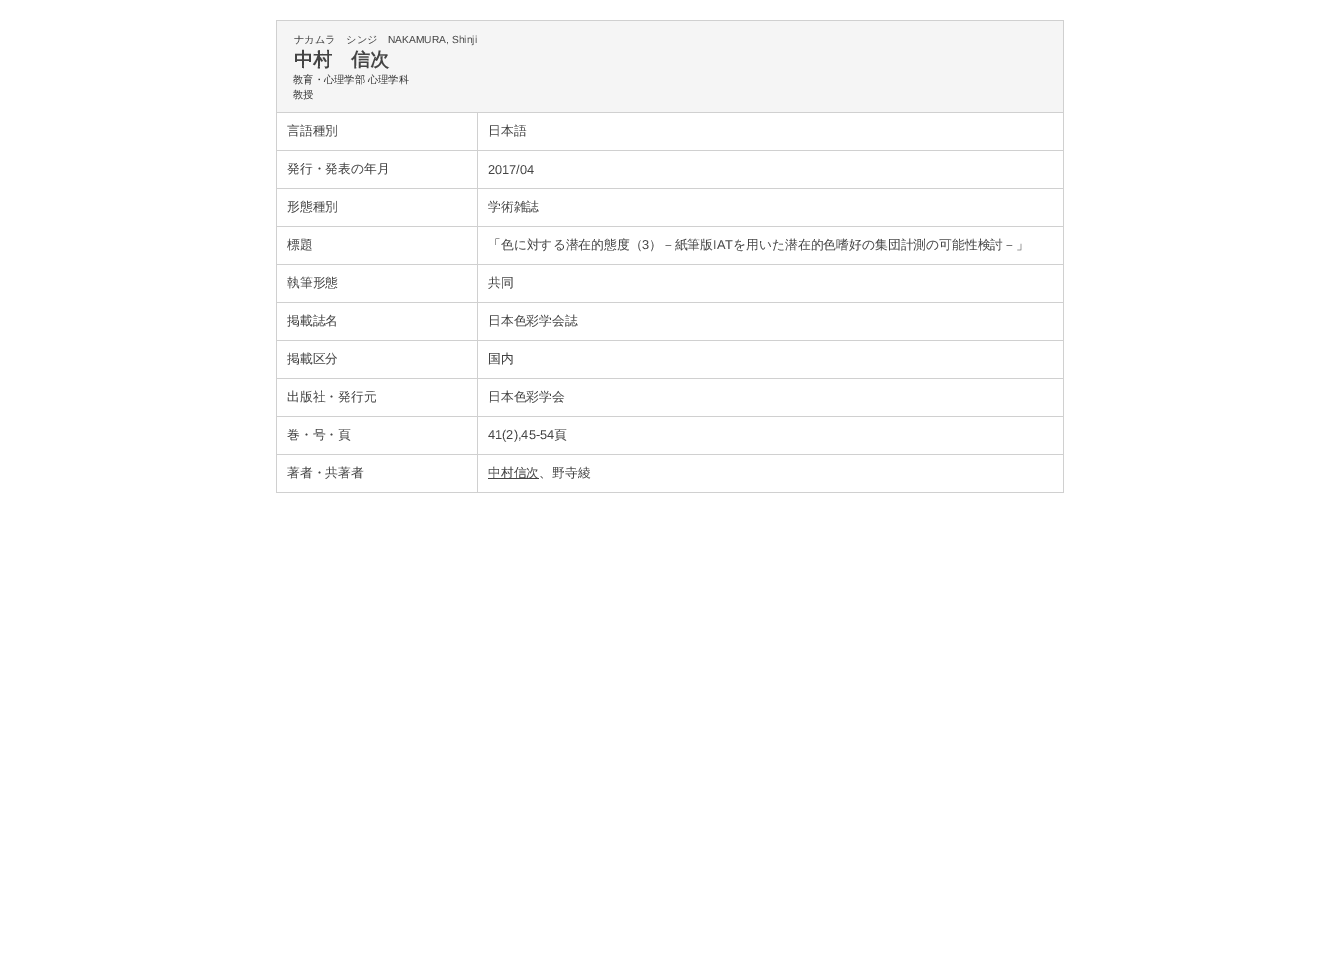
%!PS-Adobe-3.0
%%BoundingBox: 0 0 1339 960
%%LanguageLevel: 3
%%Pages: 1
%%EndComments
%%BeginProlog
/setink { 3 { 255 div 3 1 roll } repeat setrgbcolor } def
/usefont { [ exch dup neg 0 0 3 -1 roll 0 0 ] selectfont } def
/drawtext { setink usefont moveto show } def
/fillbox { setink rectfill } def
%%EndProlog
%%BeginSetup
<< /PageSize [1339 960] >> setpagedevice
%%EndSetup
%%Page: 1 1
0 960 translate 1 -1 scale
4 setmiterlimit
0 0 1339 960 255 255 255 fillbox
276 20 788 473 208 208 208 fillbox
277 21 786 91 245 245 245 fillbox
(ナカムラ　シンジ) 294 43 /WenQuanYiZenHei-Medium 10.25 68 68 68 drawtext
(NAKAMURA, Shinji) 388 43 /LiberationSans-Regular 10.25 68 68 68 drawtext
(中村　信次) 294 66 /WenQuanYiZenHei-Bold 19 68 68 68 drawtext
(教育・心理学部 心理学科) 293 83 /WenQuanYiZenHei-Medium 10.25 51 51 51 drawtext
(教授) 293 98 /WenQuanYiZenHei-Medium 10.25 51 51 51 drawtext
277 113 200 37 255 255 255 fillbox
(言語種別) 287 135 /WenQuanYiZenHei-Medium 12.8 68 68 68 drawtext
478 113 585 37 255 255 255 fillbox
(日本語) 488 135 /WenQuanYiZenHei-Medium 12.8 68 68 68 drawtext
277 151 200 37 255 255 255 fillbox
(発行・発表の年月) 287 173 /WenQuanYiZenHei-Medium 12.8 68 68 68 drawtext
478 151 585 37 255 255 255 fillbox
(2017/04) 488 174 /LiberationSans-Regular 12.8 68 68 68 drawtext
277 189 200 37 255 255 255 fillbox
(形態種別) 287 211 /WenQuanYiZenHei-Medium 12.8 68 68 68 drawtext
478 189 585 37 255 255 255 fillbox
(学術雑誌) 488 211 /WenQuanYiZenHei-Medium 12.8 68 68 68 drawtext
277 227 200 37 255 255 255 fillbox
(標題) 287 249 /WenQuanYiZenHei-Medium 12.8 68 68 68 drawtext
478 227 585 37 255 255 255 fillbox
(「色に対する潜在的態度（) 488 249 /WenQuanYiZenHei-Medium 12.8 68 68 68 drawtext
(3) 642 249 /LiberationSans-Regular 12.8 68 68 68 drawtext
(）－紙筆版) 649 249 /WenQuanYiZenHei-Medium 12.8 68 68 68 drawtext
(IAT) 713 249 /LiberationSans-Regular 12.8 68 68 68 drawtext
(を用いた潜在的色嗜好の集団計測の可能性検討－」) 733 249 /WenQuanYiZenHei-Medium 12.8 68 68 68 drawtext
277 265 200 37 255 255 255 fillbox
(執筆形態) 287 287 /WenQuanYiZenHei-Medium 12.8 68 68 68 drawtext
478 265 585 37 255 255 255 fillbox
(共同) 488 287 /WenQuanYiZenHei-Medium 12.8 68 68 68 drawtext
277 303 200 37 255 255 255 fillbox
(掲載誌名) 287 325 /WenQuanYiZenHei-Medium 12.8 68 68 68 drawtext
478 303 585 37 255 255 255 fillbox
(日本色彩学会誌) 488 325 /WenQuanYiZenHei-Medium 12.8 68 68 68 drawtext
277 341 200 37 255 255 255 fillbox
(掲載区分) 287 363 /WenQuanYiZenHei-Medium 12.8 68 68 68 drawtext
478 341 585 37 255 255 255 fillbox
(国内) 488 363 /WenQuanYiZenHei-Medium 12.8 68 68 68 drawtext
277 379 200 37 255 255 255 fillbox
(出版社・発行元) 287 401 /WenQuanYiZenHei-Medium 12.8 68 68 68 drawtext
478 379 585 37 255 255 255 fillbox
(日本色彩学会) 488 401 /WenQuanYiZenHei-Medium 12.8 68 68 68 drawtext
277 417 200 37 255 255 255 fillbox
(巻・号・頁) 287 439 /WenQuanYiZenHei-Medium 12.8 68 68 68 drawtext
478 417 585 37 255 255 255 fillbox
(41\(2\),45-54) 488 439 /LiberationSans-Regular 12.8 68 68 68 drawtext
(頁) 554 439 /WenQuanYiZenHei-Medium 12.8 68 68 68 drawtext
277 455 200 37 255 255 255 fillbox
(著者・共著者) 287 477 /WenQuanYiZenHei-Medium 12.8 68 68 68 drawtext
478 455 585 37 255 255 255 fillbox
488 478 51 1 68 68 68 fillbox
(中村信次、野寺綾) 488 477 /WenQuanYiZenHei-Medium 12.8 68 68 68 drawtext
showpage
%%EOF
